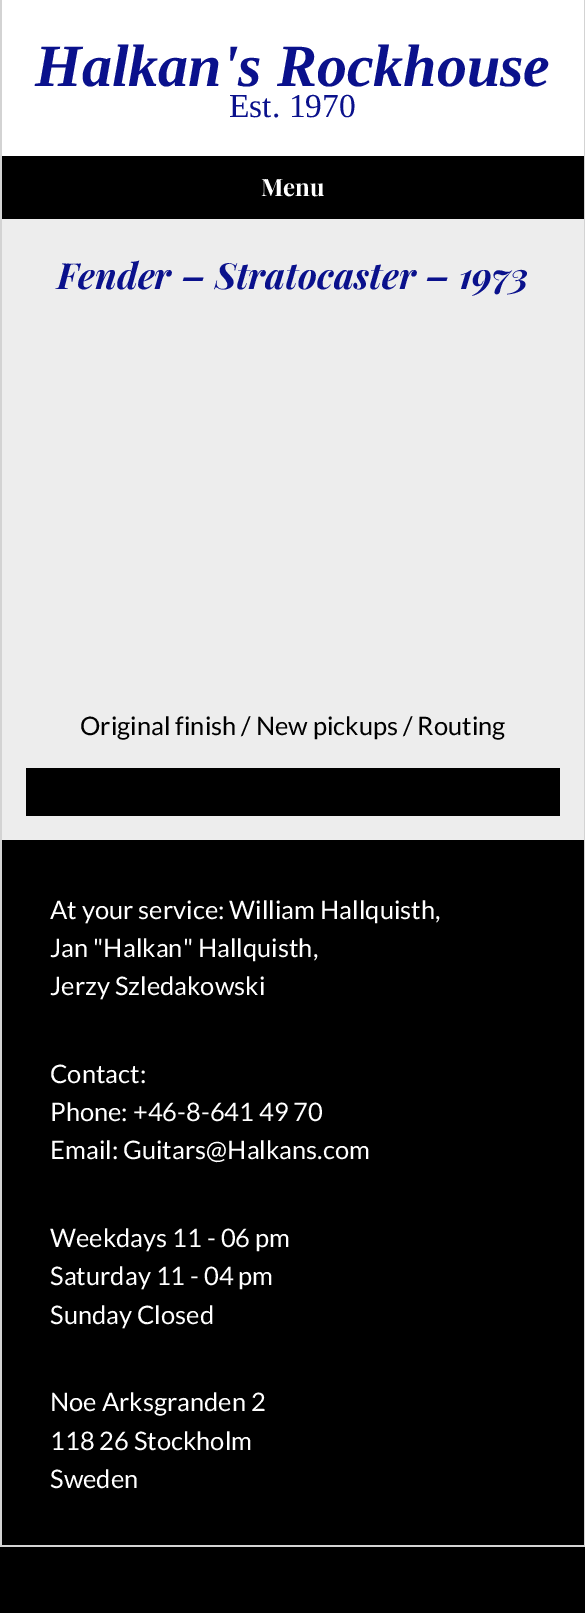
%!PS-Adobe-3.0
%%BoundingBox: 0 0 585 1613
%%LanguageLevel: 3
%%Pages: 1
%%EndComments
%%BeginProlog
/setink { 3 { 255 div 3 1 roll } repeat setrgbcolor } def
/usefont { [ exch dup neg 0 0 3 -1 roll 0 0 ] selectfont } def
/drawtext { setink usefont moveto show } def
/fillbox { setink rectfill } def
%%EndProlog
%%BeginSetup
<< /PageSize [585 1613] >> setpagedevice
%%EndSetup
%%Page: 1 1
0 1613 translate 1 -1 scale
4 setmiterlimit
0 0 585 1613 0 0 0 fillbox
2 219 582 621 237 237 237 fillbox
584 0 1 1547 211 211 211 fillbox
0 1545 585 2 211 211 211 fillbox
0 0 2 1547 211 211 211 fillbox
2 0 582 156 255 255 255 fillbox
(Halkan's Rockhouse) 35 86 /LiberationSerif-BoldItalic 60 10 17 140 drawtext
(Est. 1970) 229 117 /LiberationSerif-Regular 33.5 10 17 140 drawtext
(Menu) 261 196 /PlayfairDisplay-Bold 24 255 255 255 drawtext
(Fender – Stratocaster – 1973) 57 289 /PlayfairDisplay-BoldItalic 36 10 17 140 drawtext
(Original finish / New pickups / Routing) 80 735 /Lato-Regular 25.5 0 0 0 drawtext
26 768 534 48 0 0 0 fillbox
(At your service: William Hallquisth,) 50 919 /Lato-Regular 25.5 255 255 255 drawtext
(Jan "Halkan" Hallquisth,) 50 957 /Lato-Regular 25.5 255 255 255 drawtext
(Jerzy Szledakowski) 50 995 /Lato-Regular 25.5 255 255 255 drawtext
(Contact:) 50 1083 /Lato-Regular 25.5 255 255 255 drawtext
(Phone: +46-8-641 49 70) 50 1121 /Lato-Regular 25.5 255 255 255 drawtext
(Email: Guitars@Halkans.com) 50 1159 /Lato-Regular 25.5 255 255 255 drawtext
(Weekdays 11 - 06 pm) 50 1247 /Lato-Regular 25.5 255 255 255 drawtext
(Saturday 11 - 04 pm) 50 1285 /Lato-Regular 25.5 255 255 255 drawtext
(Sunday Closed) 50 1324 /Lato-Regular 25.5 255 255 255 drawtext
(Noe Arksgranden 2) 50 1411 /Lato-Regular 25.5 255 255 255 drawtext
(118 26 Stockholm) 50 1450 /Lato-Regular 25.5 255 255 255 drawtext
(Sweden) 50 1488 /Lato-Regular 25.5 255 255 255 drawtext
showpage
%%EOF
